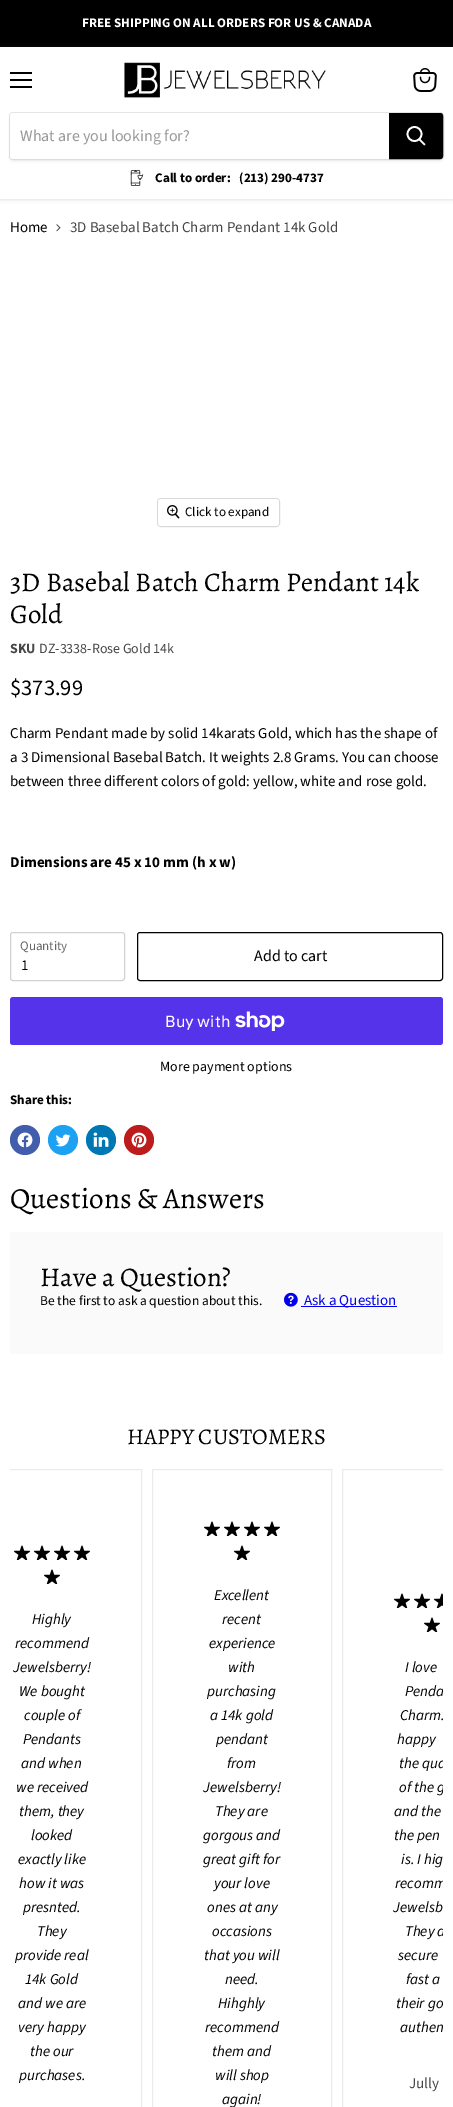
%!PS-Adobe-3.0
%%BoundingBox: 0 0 453 2107
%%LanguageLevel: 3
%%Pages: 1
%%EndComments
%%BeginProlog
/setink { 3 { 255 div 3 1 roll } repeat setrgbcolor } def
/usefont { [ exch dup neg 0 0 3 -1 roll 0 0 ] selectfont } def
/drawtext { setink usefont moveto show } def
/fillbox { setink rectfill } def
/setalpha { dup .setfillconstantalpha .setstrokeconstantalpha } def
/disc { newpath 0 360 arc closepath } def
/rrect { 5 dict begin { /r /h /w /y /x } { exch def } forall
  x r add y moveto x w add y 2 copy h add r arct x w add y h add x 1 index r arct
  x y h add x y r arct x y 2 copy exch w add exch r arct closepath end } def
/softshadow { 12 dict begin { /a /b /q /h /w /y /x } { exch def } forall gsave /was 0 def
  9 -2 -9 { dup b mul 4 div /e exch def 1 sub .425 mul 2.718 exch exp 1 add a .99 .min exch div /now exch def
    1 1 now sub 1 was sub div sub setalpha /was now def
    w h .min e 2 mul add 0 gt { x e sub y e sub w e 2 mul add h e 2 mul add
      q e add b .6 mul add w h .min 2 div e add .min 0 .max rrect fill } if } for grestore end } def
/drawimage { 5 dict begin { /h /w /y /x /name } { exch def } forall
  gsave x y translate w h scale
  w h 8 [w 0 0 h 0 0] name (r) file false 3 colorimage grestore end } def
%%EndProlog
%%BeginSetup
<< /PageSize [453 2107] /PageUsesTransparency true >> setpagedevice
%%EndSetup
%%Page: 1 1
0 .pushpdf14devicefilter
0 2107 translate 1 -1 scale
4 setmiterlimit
0 0 453 2107 255 255 255 fillbox
0 0 453 47 0 0 0 fillbox
(FREE SHIPPING ON ALL ORDERS FOR US & CANADA) 82 27 /SourceSansPro-Bold 13.1 255 255 255 drawtext
gsave
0 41 moveto 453 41 lineto 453 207 lineto 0 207 lineto closepath 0 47 moveto 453 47 lineto 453 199 lineto 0 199 lineto closepath eoclip newpath
128 128 128 setink
0 48 453 152 0 2 0.25 softshadow
grestore
10 72 22 2 0 0 0 fillbox
10 79 22 2 0 0 0 fillbox
10 86 22 2 0 0 0 fillbox
(assets/img1.rgb) 413 68 24 24 drawimage
(assets/img2.rgb) 124 62 202 36 drawimage
128 128 128 setink
9 114 435 48 4 1.5 0.11 softshadow
0.2 setalpha
9.5 112.5 434 47 3.5 rrect stroke
1 setalpha
255 255 255 setink
13 113 moveto 389 113 lineto 389 159 lineto 13 159 lineto 11.5 159 10 157.5 10 156 curveto 10 116 lineto 10 114.5 11.5 113 13 113 curveto closepath fill
(What are you looking for?) 20 141 /SourceSansPro-Regular 16 153 153 153 drawtext
0 0 0 setink
389.5 113.5 moveto 440 113.5 lineto 441.5 113.5 442.5 114.5 442.5 116 curveto 442.5 156 lineto 442.5 157.5 441.5 158.5 440 158.5 curveto 389.5 158.5 lineto closepath gsave fill grestore
stroke
255 255 255 setink
1.7 setlinewidth
1 setlinecap
424.5 144.5 moveto 419.5 139.5 lineto stroke
0 setlinecap
414.5 134 7 disc stroke
(assets/img3.rgb) 130 170 14 16 drawimage
(Call to order:) 155 182 /SourceSansPro-Bold 13.1 0 0 0 drawtext
(\(213\) 290-4737) 239 182 /SourceSansPro-Bold 13.1 0 0 0 drawtext
(Home) 10 232 /SourceSansPro-Regular 15 0 0 0 drawtext
(assets/img4.rgb) 56 224 5 8 drawimage
(3D Basebal Batch Charm Pendant 14k Gold) 70 232 /SourceSansPro-Regular 15 70 70 70 drawtext
217 217 217 setink
1 setlinewidth
157.5 498.5 122 28 3.5 rrect stroke
0.9 setalpha
255 255 255 setink
158 499 121 27 3 rrect fill
1 setalpha
(assets/img5.rgb) 167 505 13 14 drawimage
(Click to expand) 185 516 /SourceSansPro-Regular 13.1 0 0 0 drawtext
(3D Basebal Batch Charm Pendant 14k) 10 591 /Alegreya-Regular 27 0 0 0 drawtext
(Gold) 10 623 /Alegreya-Regular 27 0 0 0 drawtext
(SKU) 10 653 /SourceSansPro-Bold 14 70 70 70 drawtext
(DZ-3338-Rose Gold 14k) 39 653 /SourceSansPro-Regular 14 70 70 70 drawtext
($373.99) 10 695 /SourceSansPro-Regular 22.5 0 0 0 drawtext
(Charm Pendant made by solid 14karats Gold, which has the shape of) 10 738 /SourceSansPro-Regular 15 0 0 0 drawtext
(a 3 Dimensional Basebal Batch. It weights 2.8 Grams. You can choose) 10 762 /SourceSansPro-Regular 15 0 0 0 drawtext
(between three different colors of gold: yellow, white and rose gold.) 10 786 /SourceSansPro-Regular 15 0 0 0 drawtext
(Dimensions are 45 x 10 mm \(h x w\)) 10 867 /SourceSansPro-Bold 15 0 0 0 drawtext
209 209 209 setink
10.5 932.5 114 48 2.5 rrect stroke
(Quantity) 20 950 /SourceSansPro-Regular 13 102 102 102 drawtext
(1) 21 970 /SourceSansPro-Regular 15 0 0 0 drawtext
137.5 932.5 305 48 2.5 rrect stroke
(Add to cart) 254 961 /SourceSansPro-Regular 16 0 0 0 drawtext
84 51 235 setink
10 997 433 48 3 rrect fill
(Buy with) 165 1027 /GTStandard-Regular 16 255 255 255 drawtext
(assets/img6.rgb) 235 1011 50 20 drawimage
(More payment options) 160 1071 /SourceSansPro-Regular 14 0 0 0 drawtext
(Share this:) 10 1104 /SourceSansPro-Bold 13.1 0 0 0 drawtext
66 93 171 setink
25 1140 15 disc fill
(assets/img7.rgb) 17 1132 16 16 drawimage
29 161 242 setink
63 1140 15 disc fill
(assets/img8.rgb) 55 1134 16 13 drawimage
0 119 181 setink
101 1140 15 disc fill
(assets/img9.rgb) 93 1132 16 15 drawimage
189 28 28 setink
139 1140 15 disc fill
(assets/img10.rgb) 131 1132 16 16 drawimage
(Questions & Answers) 10 1208 /Alegreya-Regular 29.25 0 0 0 drawtext
10 1232 433 122 250 250 250 fillbox
(Have a Question?) 40 1286 /Alegreya-Regular 27 0 0 0 drawtext
(Be the first to ask a question about this.) 40 1305 /SourceSansPro-Regular 13.5 0 0 0 drawtext
(assets/img11.rgb) 284 1292 14 15 drawimage
301 1306 96 1 0 0 238 fillbox
(Ask a Question) 304 1305 /SourceSansPro-Regular 15 0 0 238 drawtext
(HAPPY CUSTOMERS) 127 1444 /Alegreya-Regular 22.5 0 0 0 drawtext
gsave
10 1469 433 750 rectclip
235 235 235 setink
-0.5 1469.5 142 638 rectstroke
grestore
(assets/img12.rgb) 14 1545 16 15 drawimage
(assets/img12.rgb) 34 1545 16 15 drawimage
(assets/img12.rgb) 54 1545 16 15 drawimage
(assets/img12.rgb) 74 1545 16 15 drawimage
(assets/img12.rgb) 44 1569 16 15 drawimage
(Highly) 32 1624 /SourceSansPro-Italic 15 0 0 0 drawtext
(recommend) 15 1648 /SourceSansPro-Italic 15 0 0 0 drawtext
(Jewelsberry!) 13 1672 /SourceSansPro-Italic 15 0 0 0 drawtext
(We bought) 19 1696 /SourceSansPro-Italic 15 0 0 0 drawtext
(couple of) 24 1720 /SourceSansPro-Italic 15 0 0 0 drawtext
(Pendants) 23 1744 /SourceSansPro-Italic 15 0 0 0 drawtext
(and when) 21 1768 /SourceSansPro-Italic 15 0 0 0 drawtext
(we received) 16 1792 /SourceSansPro-Italic 15 0 0 0 drawtext
(them, they) 19 1816 /SourceSansPro-Italic 15 0 0 0 drawtext
(looked) 31 1840 /SourceSansPro-Italic 15 0 0 0 drawtext
(exactly like) 18 1864 /SourceSansPro-Italic 15 0 0 0 drawtext
(how it was) 19 1888 /SourceSansPro-Italic 15 0 0 0 drawtext
(presnted.) 23 1912 /SourceSansPro-Italic 15 0 0 0 drawtext
(They) 37 1936 /SourceSansPro-Italic 15 0 0 0 drawtext
(provide real) 15 1960 /SourceSansPro-Italic 15 0 0 0 drawtext
(14k Gold) 25 1984 /SourceSansPro-Italic 15 0 0 0 drawtext
(and we are) 18 2008 /SourceSansPro-Italic 15 0 0 0 drawtext
(very happy) 18 2032 /SourceSansPro-Italic 15 0 0 0 drawtext
(the our) 30 2056 /SourceSansPro-Italic 15 0 0 0 drawtext
(purchases.) 19 2080 /SourceSansPro-Italic 15 0 0 0 drawtext
235 235 235 setink
152.5 1469.5 179 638 rectstroke
(assets/img12.rgb) 204 1521 16 15 drawimage
(assets/img12.rgb) 224 1521 16 15 drawimage
(assets/img12.rgb) 244 1521 16 15 drawimage
(assets/img12.rgb) 264 1521 16 15 drawimage
(assets/img12.rgb) 234 1545 16 15 drawimage
(Excellent) 214 1600 /SourceSansPro-Italic 15 0 0 0 drawtext
(recent) 222 1624 /SourceSansPro-Italic 15 0 0 0 drawtext
(experience) 209 1648 /SourceSansPro-Italic 15 0 0 0 drawtext
(with) 228 1672 /SourceSansPro-Italic 15 0 0 0 drawtext
(purchasing) 207 1696 /SourceSansPro-Italic 15 0 0 0 drawtext
(a 14k gold) 210 1720 /SourceSansPro-Italic 15 0 0 0 drawtext
(pendant) 216 1744 /SourceSansPro-Italic 15 0 0 0 drawtext
(from) 227 1768 /SourceSansPro-Italic 15 0 0 0 drawtext
(Jewelsberry!) 203 1792 /SourceSansPro-Italic 15 0 0 0 drawtext
(They are) 215 1816 /SourceSansPro-Italic 15 0 0 0 drawtext
(gorgous and) 203 1840 /SourceSansPro-Italic 15 0 0 0 drawtext
(great gift for) 203 1864 /SourceSansPro-Italic 15 0 0 0 drawtext
(your love) 214 1888 /SourceSansPro-Italic 15 0 0 0 drawtext
(ones at any) 207 1912 /SourceSansPro-Italic 15 0 0 0 drawtext
(occasions) 212 1936 /SourceSansPro-Italic 15 0 0 0 drawtext
(that you will) 204 1960 /SourceSansPro-Italic 15 0 0 0 drawtext
(need.) 225 1984 /SourceSansPro-Italic 15 0 0 0 drawtext
(Hihghly) 218 2008 /SourceSansPro-Italic 15 0 0 0 drawtext
(recommend) 205 2032 /SourceSansPro-Italic 15 0 0 0 drawtext
(them and) 212 2056 /SourceSansPro-Italic 15 0 0 0 drawtext
(will shop) 215 2080 /SourceSansPro-Italic 15 0 0 0 drawtext
(again!) 222 2104 /SourceSansPro-Italic 15 0 0 0 drawtext
gsave
10 1469 433 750 rectclip
235 235 235 setink
342.5 1469.5 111 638 rectstroke
grestore
(assets/img12.rgb) 394 1593 16 15 drawimage
(assets/img12.rgb) 414 1593 16 15 drawimage
(assets/img13.rgb) 434 1593 9 15 drawimage
(assets/img12.rgb) 424 1617 16 15 drawimage
(I love) 405 1672 /SourceSansPro-Italic 15 0 0 0 drawtext
gsave
10 1469 433 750 rectclip
(Penda) 405 1696 /SourceSansPro-Italic 15 0 0 0 drawtext
grestore
(Charm.) 400 1720 /SourceSansPro-Italic 15 0 0 0 drawtext
(happy) 397 1744 /SourceSansPro-Italic 15 0 0 0 drawtext
gsave
10 1469 433 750 rectclip
(the qua) 399 1768 /SourceSansPro-Italic 15 0 0 0 drawtext
(of the g) 399 1792 /SourceSansPro-Italic 15 0 0 0 drawtext
grestore
(and the) 394 1816 /SourceSansPro-Italic 15 0 0 0 drawtext
(the pen) 394 1840 /SourceSansPro-Italic 15 0 0 0 drawtext
(is. I hig) 401 1864 /SourceSansPro-Italic 15 0 0 0 drawtext
gsave
10 1469 433 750 rectclip
(recomm) 395 1888 /SourceSansPro-Italic 15 0 0 0 drawtext
grestore
(Jewelsb) 393 1912 /SourceSansPro-Italic 15 0 0 0 drawtext
gsave
10 1469 433 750 rectclip
(They a) 405 1936 /SourceSansPro-Italic 15 0 0 0 drawtext
grestore
(secure) 398 1960 /SourceSansPro-Italic 15 0 0 0 drawtext
(fast a) 406 1984 /SourceSansPro-Italic 15 0 0 0 drawtext
(their go) 396 2008 /SourceSansPro-Italic 15 0 0 0 drawtext
gsave
10 1469 433 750 rectclip
(authen) 400 2032 /SourceSansPro-Italic 15 0 0 0 drawtext
grestore
(Jully) 409 2088 /SourceSansPro-Regular 15 70 70 70 drawtext
.poppdf14devicefilter showpage
%%EOF
